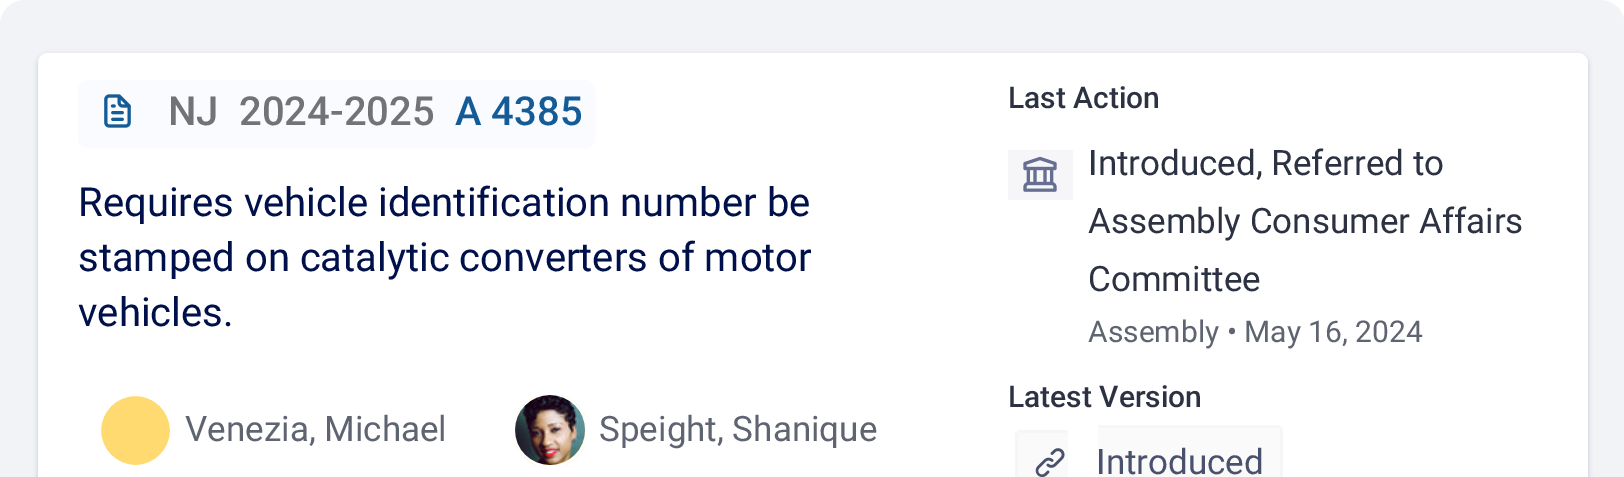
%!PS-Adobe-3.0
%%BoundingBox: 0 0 1624 477
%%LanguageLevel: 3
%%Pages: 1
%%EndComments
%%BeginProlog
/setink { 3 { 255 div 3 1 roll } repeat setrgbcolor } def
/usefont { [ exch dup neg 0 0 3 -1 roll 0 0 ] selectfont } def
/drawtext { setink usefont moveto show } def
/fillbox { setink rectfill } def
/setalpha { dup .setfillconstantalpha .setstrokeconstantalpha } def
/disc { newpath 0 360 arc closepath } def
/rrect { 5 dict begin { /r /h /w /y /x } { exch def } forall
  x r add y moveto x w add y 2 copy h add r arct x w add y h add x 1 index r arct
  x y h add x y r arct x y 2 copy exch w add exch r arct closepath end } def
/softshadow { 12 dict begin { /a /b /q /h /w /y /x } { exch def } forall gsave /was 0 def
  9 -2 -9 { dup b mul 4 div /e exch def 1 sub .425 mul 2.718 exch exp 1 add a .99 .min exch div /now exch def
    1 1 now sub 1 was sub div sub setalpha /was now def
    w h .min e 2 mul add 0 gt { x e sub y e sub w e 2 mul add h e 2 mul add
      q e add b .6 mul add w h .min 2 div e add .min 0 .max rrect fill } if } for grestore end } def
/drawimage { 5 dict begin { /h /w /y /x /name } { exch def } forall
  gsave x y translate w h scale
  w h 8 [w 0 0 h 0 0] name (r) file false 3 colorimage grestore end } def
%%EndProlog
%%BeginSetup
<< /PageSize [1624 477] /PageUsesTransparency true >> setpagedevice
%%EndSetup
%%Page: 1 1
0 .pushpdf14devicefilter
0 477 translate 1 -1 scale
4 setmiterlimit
0 0 1624 477 255 255 255 fillbox
242 243 246 setink
0 0 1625 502 25 rrect fill
0 16 75 setink
38 55 1550 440 10 2.5 0.2 softshadow
255 255 255 setink
38 53 1550 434 10 rrect fill
250 251 255 setink
78 80 517 68 10 rrect fill
(assets/img1.rgb) 104 94 27 34 drawimage
(NJ) 168 125 /Roboto-Medium 40 114 115 117 drawtext
(2024-2025) 239 125 /Roboto-Medium 40 114 115 117 drawtext
(A 4385) 455 125 /Roboto-Medium 40 20 92 151 drawtext
(Requires vehicle identification number be) 78 216 /Roboto-Regular 40 0 16 75 drawtext
(stamped on catalytic converters of motor) 78 271 /Roboto-Regular 40 0 16 75 drawtext
(vehicles.) 78 326 /Roboto-Regular 40 0 16 75 drawtext
255 218 113 setink
135.5 430.5 36 disc gsave fill grestore
255 255 255 setink
3 setlinewidth
stroke
(Venezia, Michael) 185 441 /Roboto-Regular 35 95 100 113 drawtext
255 218 113 setink
550.5 430.5 36 disc gsave fill grestore
255 255 255 setink
stroke
(assets/img2.rgb) 515 395 70 70 drawimage
(Speight, Shanique) 599 441 /Roboto-Regular 35 95 100 113 drawtext
(Last Action) 1008 108 /Roboto-Medium 30 44 50 66 drawtext
1008 150 65 50 246 246 248 fillbox
(assets/img3.rgb) 1023 156 34 36 drawimage
(Introduced, Referred to) 1088 175 /Roboto-Regular 35 44 50 66 drawtext
(Assembly Consumer Affairs) 1088 233 /Roboto-Regular 35 44 50 66 drawtext
(Committee) 1088 291 /Roboto-Regular 35 44 50 66 drawtext
(Assembly • May 16, 2024) 1088 342 /Roboto-Regular 30 95 100 113 drawtext
(Latest Version) 1008 407 /Roboto-Medium 30 44 50 66 drawtext
250 250 251 setink
1020 430 moveto 1068 430 lineto 1068 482 lineto 1020 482 lineto 1017 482 1015 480 1015 477 curveto 1015 435 lineto 1015 432 1017 430 1020 430 curveto closepath fill
1018 430 50 3 246 246 248 fillbox
1015 433 3 44 246 246 248 fillbox
250 250 251 setink
1098 425 moveto 1278 425 lineto 1281 425 1283 427 1283 430 curveto 1283 477 lineto 1283 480 1281 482 1278 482 curveto 1098 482 lineto closepath fill
1098 425 182 3 246 246 248 fillbox
1280 428 3 49 246 246 248 fillbox
(assets/img4.rgb) 1035 448 30 29 drawimage
(Introduced) 1096 474 /Roboto-Regular 35 73 81 108 drawtext
.poppdf14devicefilter showpage
%%EOF
